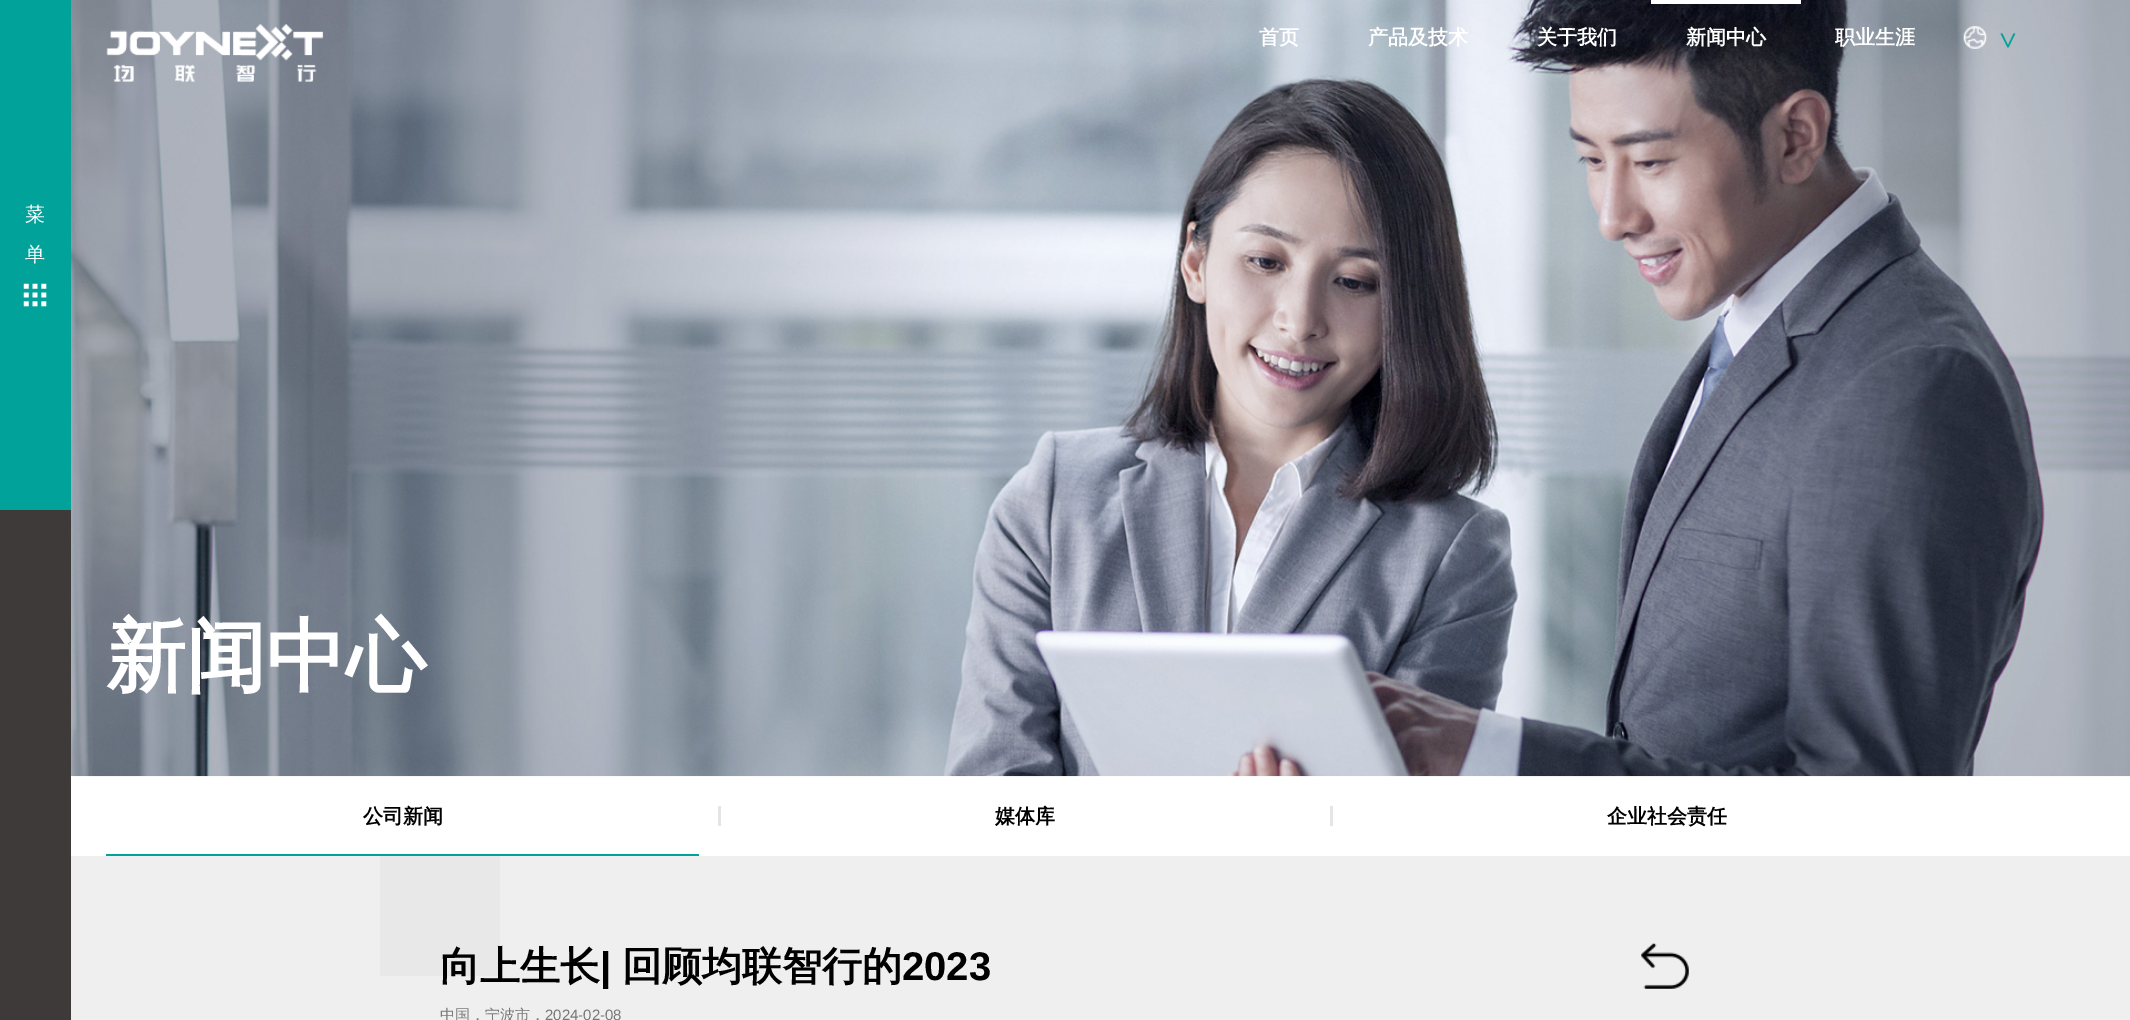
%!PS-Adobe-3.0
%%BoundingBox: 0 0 2130 1020
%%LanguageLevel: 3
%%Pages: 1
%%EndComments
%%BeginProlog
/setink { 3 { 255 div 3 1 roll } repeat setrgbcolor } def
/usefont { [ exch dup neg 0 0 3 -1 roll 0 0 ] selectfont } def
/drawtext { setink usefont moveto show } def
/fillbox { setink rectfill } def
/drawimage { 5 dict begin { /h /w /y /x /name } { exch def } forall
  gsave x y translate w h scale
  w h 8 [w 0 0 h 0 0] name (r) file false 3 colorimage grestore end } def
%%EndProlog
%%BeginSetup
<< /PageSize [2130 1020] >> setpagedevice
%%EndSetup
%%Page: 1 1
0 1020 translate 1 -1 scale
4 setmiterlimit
0 0 2130 1020 239 239 239 fillbox
71 776 2059 80 255 255 255 fillbox
(assets/img4.rgb) 71 0 2059 777 drawimage
(assets/img1.rgb) 106 24 218 58 drawimage
(首页) 1259 44 /WenQuanYiZenHei-Bold 20 255 255 255 drawtext
(产品及技术) 1368 44 /WenQuanYiZenHei-Bold 20 255 255 255 drawtext
(关于我们) 1537 44 /WenQuanYiZenHei-Bold 20 255 255 255 drawtext
1651 0 150 4 255 255 255 fillbox
(新闻中心) 1686 44 /WenQuanYiZenHei-Bold 20 255 255 255 drawtext
(职业生涯) 1835 44 /WenQuanYiZenHei-Bold 20 255 255 255 drawtext
(assets/img2.rgb) 1963 26 24 23 drawimage
/LiberationSerif-Bold 30 usefont
0 162 154 setink
gsave 1998 32 translate 90 rotate 0 0 moveto -6 0 (>) ashow grestore
0 0 71 510 0 162 154 fillbox
(assets/img3.rgb) 23 283 24 24 drawimage
(菜) 25 221 /WenQuanYiZenHei-Medium 20 255 255 255 drawtext
(单) 25 261 /WenQuanYiZenHei-Medium 20 255 255 255 drawtext
0 510 71 510 62 58 57 fillbox
(新闻中心) 106 684 /WenQuanYiZenHei-Bold 80 255 255 255 drawtext
(公司新闻) 363 823 /WenQuanYiZenHei-Bold 20 0 0 0 drawtext
718 806 3 20 229 229 229 fillbox
106 854 593 2 0 162 154 fillbox
(媒体库) 995 823 /WenQuanYiZenHei-Bold 20 0 0 0 drawtext
1330 806 3 20 229 229 229 fillbox
(企业社会责任) 1607 823 /WenQuanYiZenHei-Bold 20 0 0 0 drawtext
380 856 120 120 232 232 232 fillbox
(向上生长) 440 980 /WenQuanYiZenHei-Bold 40 0 0 0 drawtext
(|) 600 980 /LiberationSans-Bold 40 0 0 0 drawtext
(回顾均联智行的) 622 980 /WenQuanYiZenHei-Bold 40 0 0 0 drawtext
(2023) 902 980 /LiberationSans-Bold 40 0 0 0 drawtext
(assets/img5.rgb) 1641 943 48 46 drawimage
(中国，宁波市，) 440 1020 /WenQuanYiZenHei-Medium 15 120 120 120 drawtext
(2024-02-08) 545 1020 /LiberationSans-Regular 15 120 120 120 drawtext
showpage
%%EOF
